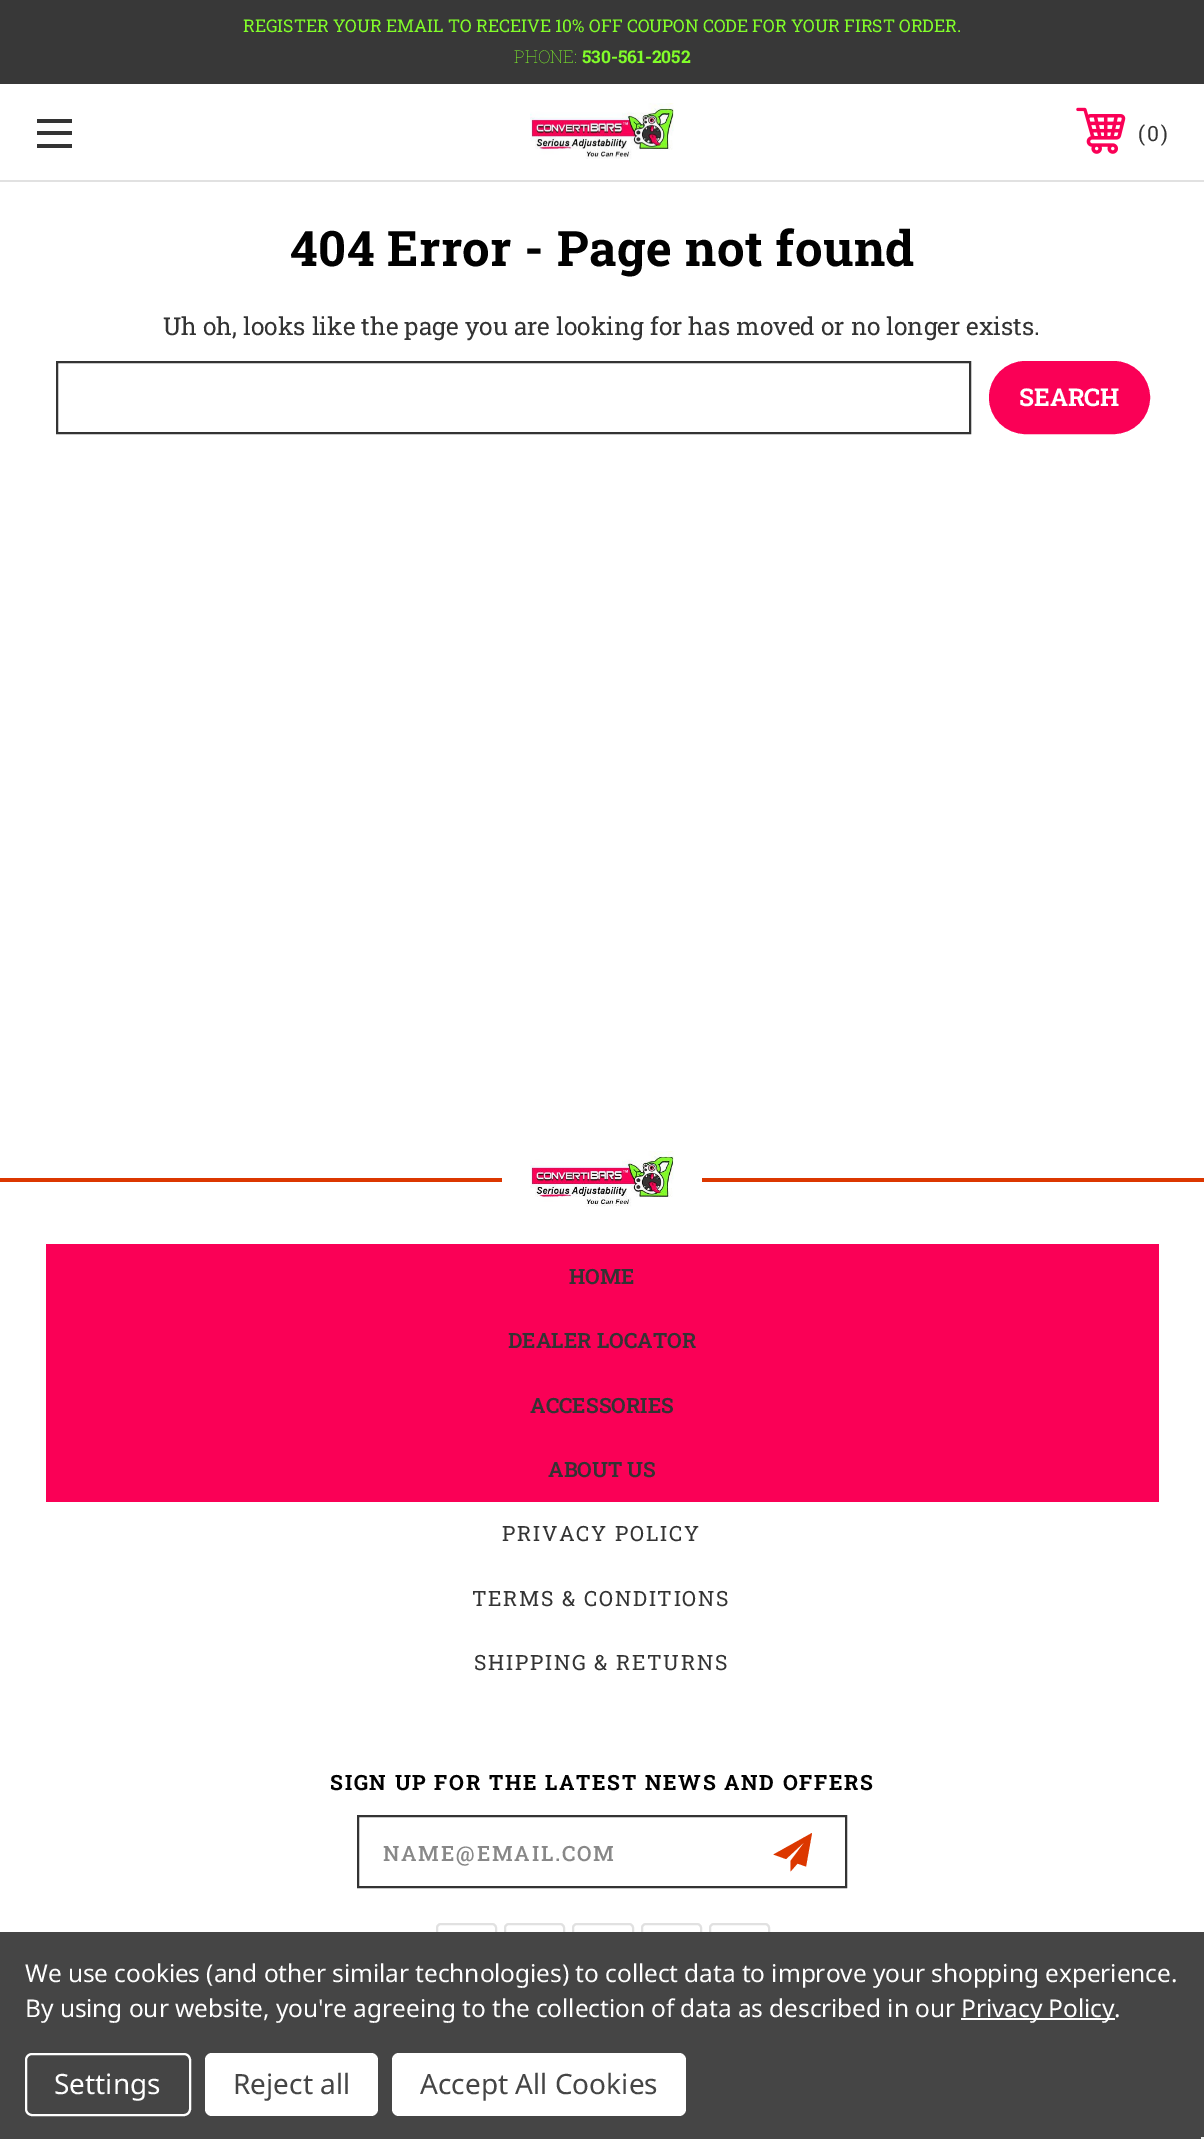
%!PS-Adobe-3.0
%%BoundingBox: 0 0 1204 2139
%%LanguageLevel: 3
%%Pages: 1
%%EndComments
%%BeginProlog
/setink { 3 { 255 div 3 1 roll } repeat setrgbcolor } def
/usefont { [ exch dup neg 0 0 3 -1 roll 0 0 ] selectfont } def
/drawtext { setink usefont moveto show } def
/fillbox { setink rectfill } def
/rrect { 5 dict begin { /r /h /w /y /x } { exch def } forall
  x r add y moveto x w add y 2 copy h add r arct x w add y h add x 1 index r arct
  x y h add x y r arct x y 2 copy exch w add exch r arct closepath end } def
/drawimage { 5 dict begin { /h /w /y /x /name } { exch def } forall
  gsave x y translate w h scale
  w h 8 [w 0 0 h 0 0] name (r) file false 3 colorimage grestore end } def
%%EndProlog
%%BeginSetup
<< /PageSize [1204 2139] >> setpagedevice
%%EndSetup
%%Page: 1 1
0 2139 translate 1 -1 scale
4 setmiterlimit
0 0 1204 2139 255 255 255 fillbox
0 0 1204 84 56 56 56 fillbox
(REGISTER YOUR EMAIL TO RECEIVE 10% OFF COUPON CODE FOR YOUR FIRST ORDER.) 243 32 /RobotoSlab-Regular 17.5 130 253 42 drawtext
(PHONE:) 514 63 /RobotoSlab-Thin 17.5 130 253 42 drawtext
(530-561-2052) 582 63 /RobotoSlab-Bold 17.5 130 253 42 drawtext
0 180 1204 2 225 225 225 fillbox
37 131 35 4 51 51 51 fillbox
37 119 35 4 51 51 51 fillbox
37 144 35 4 51 51 51 fillbox
(assets/img1.rgb) 530 103 144 56 drawimage
(assets/img2.rgb) 1076 107 50 47 drawimage
(\() 1138 141 /RobotoSlab-Regular 21 51 51 51 drawtext
(0) 1147 141 /RobotoSlab-Regular 21 51 51 51 drawtext
(\)) 1161 141 /RobotoSlab-Regular 21 51 51 51 drawtext
/RobotoSlab-Bold 49 usefont
1 1 1 setink
290 266 moveto 0.45 0 (404 Error - Page not found) ashow
(Uh oh, looks like the page you are looking for has moved or no longer exists.) 163 335 /RobotoSlab-Regular 24.5 51 51 51 drawtext
2 setlinewidth
57 362 913 71 rectstroke
250 0 86 setink
990 362 159 71 35.5 rrect gsave fill grestore
stroke
(SEARCH) 1019 406 /RobotoSlab-Bold 24.5 255 255 255 drawtext
0 1178 1204 4 220 55 0 fillbox
502 1178 200 4 255 255 255 fillbox
(assets/img3.rgb) 530 1151 144 56 drawimage
46 1244 1113 258 250 0 86 fillbox
(HOME) 569 1284 /RobotoSlab-SemiBold 21 51 51 51 drawtext
(DEALER LOCATOR) 508 1348 /RobotoSlab-SemiBold 21 51 51 51 drawtext
(ACCESSORIES) 530 1413 /RobotoSlab-SemiBold 21 51 51 51 drawtext
(ABOUT US) 548 1477 /RobotoSlab-SemiBold 21 51 51 51 drawtext
/RobotoSlab-Regular 21 usefont
502 1541 moveto 1.75 0 (PRIVACY POLICY) ashow
472 1606 moveto 1.75 0 (TERMS & CONDITIONS) ashow
474 1670 moveto 1.75 0 (SHIPPING & RETURNS) ashow
/RobotoSlab-Bold 21 usefont
1 1 1 setink
330 1790 moveto 1.75 0 (SIGN UP FOR THE LATEST NEWS AND OFFERS) ashow
51 51 51 setink
358 1816 488 71 rectstroke
/RobotoSlab-Medium 21 usefont
136 136 136 setink
383 1861 moveto 1.75 0 (NAME@EMAIL.COM) ashow
220 55 0 setink
812 1833 moveto 773.5 1854.5 lineto 786 1859 lineto 805 1841.5 lineto 790.5 1861 lineto 790.5 1871.5 lineto 797.5 1863.5 lineto 806 1866.5 lineto closepath fill
225 225 225 setink
437 1924 59 42 4 rrect stroke
505 1924 59 42 4 rrect stroke
573 1924 60 42 4 rrect stroke
642 1924 59 42 4 rrect stroke
710 1924 59 42 4 rrect stroke
0 1932 1204 207 69 69 69 fillbox
/NotoSans-Regular 24.5 usefont
255 255 255 setink
25 1982 moveto -0.09 0 (We use cookies \(and other similar technologies\) to collect data to improve your shopping experience.) ashow
25 2017 moveto -0.09 0 (By using our website, you're agreeing to the collection of data as described in our) ashow
961 2018 154 2 255 255 255 fillbox
961 2017 moveto -0.09 0 (Privacy Policy.) ashow
26 2054 164 61 6 rrect stroke
(Settings) 54 2094 /NotoSans-Regular 28 255 255 255 drawtext
205 2053 173 63 7 rrect fill
(Reject all) 233 2094 /NotoSans-Regular 28 69 69 69 drawtext
255 255 255 setink
392 2053 294 63 7 rrect fill
(Accept All Cookies) 420 2094 /NotoSans-Regular 28 69 69 69 drawtext
1201 2137 3 2 245 245 245 fillbox
showpage
%%EOF
